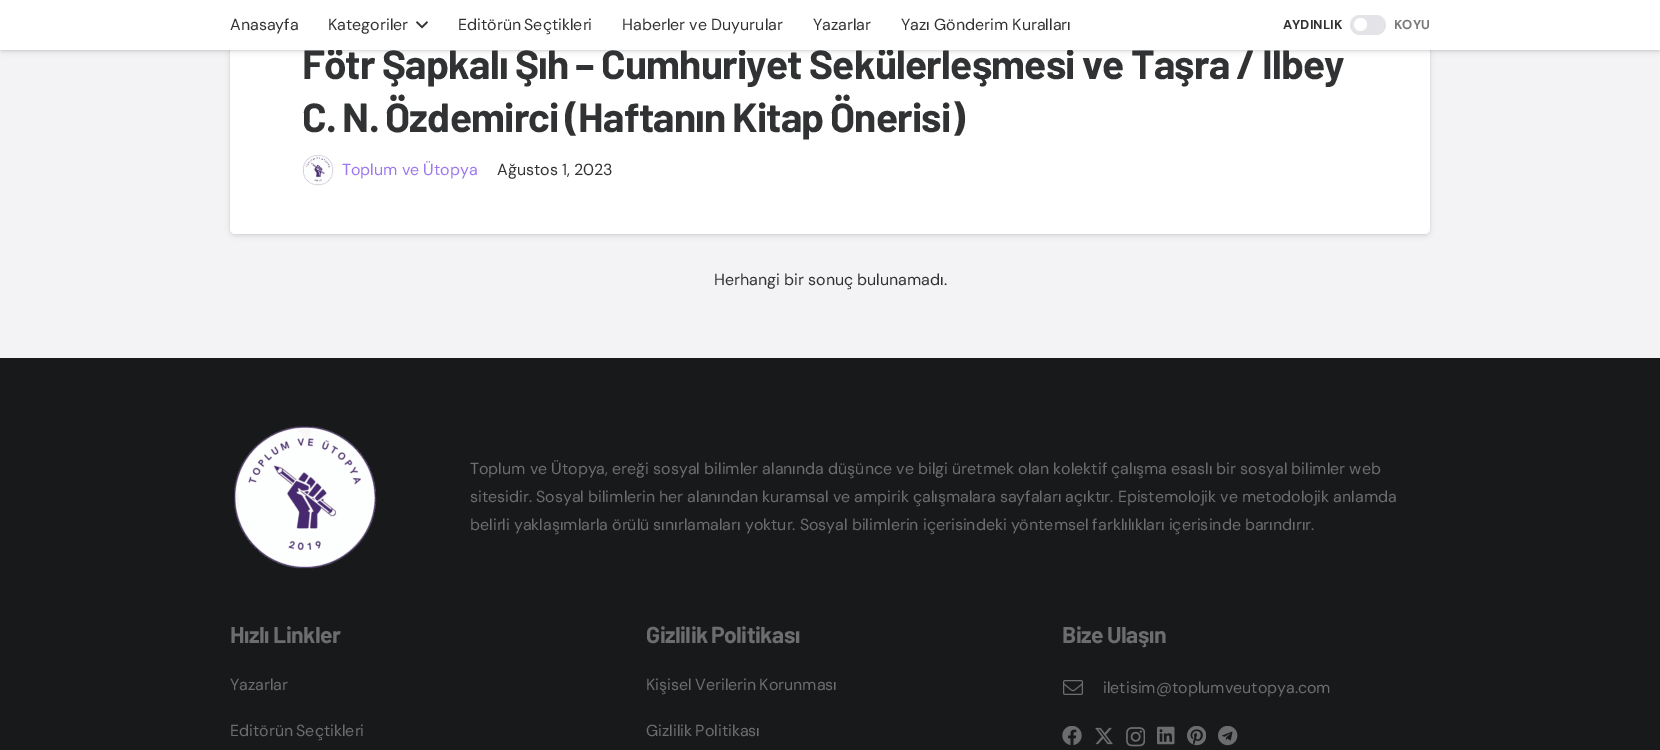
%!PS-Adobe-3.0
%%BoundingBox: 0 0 1660 750
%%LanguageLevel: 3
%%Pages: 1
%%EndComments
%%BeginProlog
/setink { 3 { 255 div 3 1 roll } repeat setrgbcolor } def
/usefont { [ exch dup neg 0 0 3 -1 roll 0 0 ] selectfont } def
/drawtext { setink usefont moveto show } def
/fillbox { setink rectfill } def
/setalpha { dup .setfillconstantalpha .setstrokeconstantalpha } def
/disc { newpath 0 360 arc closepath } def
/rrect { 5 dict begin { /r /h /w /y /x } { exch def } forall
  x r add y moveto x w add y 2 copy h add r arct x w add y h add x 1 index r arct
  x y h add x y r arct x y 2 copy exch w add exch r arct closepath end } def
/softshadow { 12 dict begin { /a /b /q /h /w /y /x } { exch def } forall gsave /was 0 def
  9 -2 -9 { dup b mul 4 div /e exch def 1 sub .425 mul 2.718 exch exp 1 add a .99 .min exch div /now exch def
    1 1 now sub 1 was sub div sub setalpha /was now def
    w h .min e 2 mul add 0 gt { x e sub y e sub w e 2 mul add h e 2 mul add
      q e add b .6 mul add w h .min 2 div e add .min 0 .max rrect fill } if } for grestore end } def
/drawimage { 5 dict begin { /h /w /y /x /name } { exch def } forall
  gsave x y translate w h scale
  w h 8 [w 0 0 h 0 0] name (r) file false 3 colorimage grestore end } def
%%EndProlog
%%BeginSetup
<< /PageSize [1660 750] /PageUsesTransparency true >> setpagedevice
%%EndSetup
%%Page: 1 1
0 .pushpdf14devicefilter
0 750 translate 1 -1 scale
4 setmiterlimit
0 0 1660 750 243 242 245 fillbox
0 0 0 setink
230 -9 1200 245 5 2.5 0.1 softshadow
230 -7 1200 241 5 0.5 0.1 softshadow
255 255 255 setink
230 -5 1200 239 5 rrect fill
0 0 0 setink
1 3 1658 48 0 0.5 0.05 softshadow
1 4 1658 48 0 2.5 0.1 softshadow
/Barlow-Bold 40.6 usefont
49 50 51 setink
302 79 moveto -0.25 0 32 -0.8 0 (Fötr Şapkalı Şıh – Cumhuriyet Sekülerleşmesi ve Taşra / İlbey) awidthshow
0 0 1660 50 255 255 255 fillbox
(Anasayfa) 230 30 /DMSans-Regular 16 49 50 51 drawtext
(Kategoriler) 328 30 /DMSans-Regular 16 49 50 51 drawtext
(assets/img1.rgb) 416 21 12 8 drawimage
458 30 moveto -1 0 32 (Editörün Seçtikleri) widthshow
(Haberler ve Duyurular) 622 30 /DMSans-Regular 16 49 50 51 drawtext
(Yazarlar) 813 30 /DMSans-Regular 16 49 50 51 drawtext
(Yazı Gönderim Kuralları) 901 30 /DMSans-Regular 16 49 50 51 drawtext
(AYDINLIK) 1283 29 /DMSans-Bold 13 49 50 51 drawtext
228 227 232 setink
1350 15 36 20 10 rrect fill
255 255 255 setink
1360.5 24.5 6.5 disc fill
(KOYU) 1394 29 /DMSans-Bold 13 121 122 122 drawtext
/Barlow-Bold 40.6 usefont
49 50 51 setink
302 132 moveto -1 0 32 -0.8 0 (C. N. Özdemirci \(Haftanın Kitap Önerisi\)) awidthshow
(assets/img2.rgb) 302 155 32 31 drawimage
(Toplum ve Ütopya) 342 175 /DMSans-Regular 16 158 120 238 drawtext
(Ağustos 1, 2023) 497 175 /DMSans-Regular 16 49 50 51 drawtext
(Herhangi bir sonuç bulunamadı.) 714 285 /DMSans-Regular 16 49 50 51 drawtext
0 358 1660 392 24 25 26 fillbox
(assets/img3.rgb) 233 426 145 144 drawimage
107 109 110 setink
470 474 moveto -0.1 0 32 (Toplum ve Ütopya, ereği sosyal bilimler alanında düşünce ve bilgi üretmek olan kolektif çalışma esaslı bir sosyal bilimler web) widthshow
470 502 moveto -0.25 0 32 (sitesidir. Sosyal bilimlerin her alanından kuramsal ve ampirik çalışmalara sayfaları açıktır. Epistemolojik ve metodolojik anlamda) widthshow
470 530 moveto -0.25 0 32 (belirli yaklaşımlarla örülü sınırlamaları yoktur. Sosyal bilimlerin içerisindeki yöntemsel farklılıkları içerisinde barındırır.) widthshow
/Barlow-Bold 23 usefont
230 643 moveto -0.5 0 (Hızlı Linkler) ashow
(Yazarlar) 230 690 /DMSans-Regular 16 107 109 110 drawtext
230 736 moveto -1 0 32 (Editörün Seçtikleri) widthshow
/Barlow-Bold 23 usefont
646 643 moveto -1 0 32 -0.5 0 (Gizlilik Politikası) awidthshow
/DMSans-Regular 16 usefont
646 690 moveto -1 0 32 (Kişisel Verilerin Korunması) widthshow
646 736 moveto -1 0 32 (Gizlilik Politikası) widthshow
/Barlow-Bold 23 usefont
1062 643 moveto -0.5 0 (Bize Ulaşın) ashow
(assets/img4.rgb) 1063 680 20 15 drawimage
(iletisim@toplumveutopya.com) 1103 693 /DMSans-Regular 16 107 109 110 drawtext
(assets/img5.rgb) 1062 726 20 19 drawimage
(assets/img6.rgb) 1095 727 18 18 drawimage
(assets/img7.rgb) 1126 727 19 20 drawimage
(assets/img8.rgb) 1157 726 18 19 drawimage
(assets/img9.rgb) 1187 726 19 20 drawimage
(assets/img10.rgb) 1218 726 20 20 drawimage
.poppdf14devicefilter showpage
%%EOF
